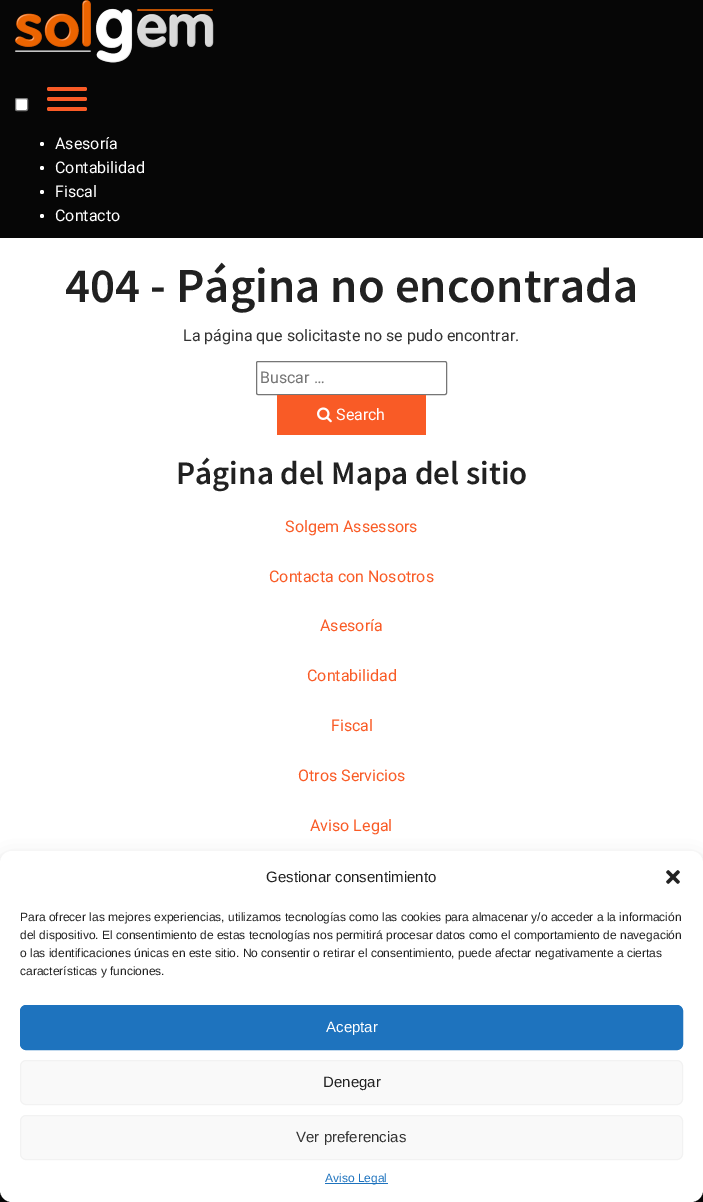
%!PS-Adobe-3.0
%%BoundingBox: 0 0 703 1202
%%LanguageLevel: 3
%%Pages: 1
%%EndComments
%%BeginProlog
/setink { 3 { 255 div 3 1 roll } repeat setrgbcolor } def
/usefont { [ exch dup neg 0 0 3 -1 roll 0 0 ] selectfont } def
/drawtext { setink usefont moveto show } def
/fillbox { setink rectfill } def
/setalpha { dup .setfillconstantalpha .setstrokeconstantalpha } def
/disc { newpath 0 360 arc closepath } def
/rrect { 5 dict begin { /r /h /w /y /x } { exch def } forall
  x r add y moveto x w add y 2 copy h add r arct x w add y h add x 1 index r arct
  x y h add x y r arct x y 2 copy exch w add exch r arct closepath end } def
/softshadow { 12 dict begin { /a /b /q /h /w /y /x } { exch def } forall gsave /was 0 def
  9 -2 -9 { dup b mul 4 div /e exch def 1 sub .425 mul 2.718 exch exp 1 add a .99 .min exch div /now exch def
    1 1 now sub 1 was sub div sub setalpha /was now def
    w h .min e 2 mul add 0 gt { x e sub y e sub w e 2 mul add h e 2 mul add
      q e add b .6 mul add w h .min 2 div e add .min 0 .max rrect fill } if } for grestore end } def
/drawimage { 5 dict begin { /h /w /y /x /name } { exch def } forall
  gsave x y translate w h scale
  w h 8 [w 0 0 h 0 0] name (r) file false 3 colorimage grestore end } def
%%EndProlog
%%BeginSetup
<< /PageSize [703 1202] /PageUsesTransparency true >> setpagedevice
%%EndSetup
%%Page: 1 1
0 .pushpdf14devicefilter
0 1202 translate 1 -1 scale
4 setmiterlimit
0 0 703 1202 255 255 255 fillbox
0 0 703 238 6 6 6 fillbox
(assets/img1.rgb) 15 0 199 63 drawimage
255 255 255 setink
15.5 98.5 12 12 1.5 rrect gsave fill grestore
118 118 118 setink
stroke
249 91 38 setink
47 107 40 4 2 rrect fill
47 87 40 4 2 rrect fill
47 97 40 4 2 rrect fill
255 255 255 setink
42 144 2 disc fill
(Asesoría) 55 149 /Roboto-Regular 16 255 255 255 drawtext
42 168 2 disc fill
(Contabilidad) 55 173 /Roboto-Regular 16 255 255 255 drawtext
42 192 2 disc fill
(Fiscal) 55 197 /Roboto-Regular 16 255 255 255 drawtext
42 216 2 disc fill
(Contacto) 55 221 /Roboto-Regular 16 255 255 255 drawtext
(404 - Página no encontrada) 65 302 /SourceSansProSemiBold-SemiBold 49 33 33 33 drawtext
(La página que solicitaste no se pudo encontrar.) 183 341 /Roboto-Regular 16 51 51 51 drawtext
118 118 118 setink
256.5 361.5 190 33 1.5 rrect stroke
(Buscar …) 260 383 /Roboto-Regular 16 117 117 117 drawtext
277 395 149 40 249 91 38 fillbox
(assets/img2.rgb) 317 407 15 16 drawimage
(Search) 336 420 /Roboto-Regular 16 255 255 255 drawtext
(Página del Mapa del sitio) 176 484 /SourceSansProSemiBold-SemiBold 33 33 33 33 drawtext
(Solgem Assessors) 285 532 /Roboto-Regular 16 249 91 38 drawtext
(Contacta con Nosotros) 269 582 /Roboto-Regular 16 249 91 38 drawtext
(Asesoría) 320 631 /Roboto-Regular 16 249 91 38 drawtext
(Contabilidad) 307 681 /Roboto-Regular 16 249 91 38 drawtext
(Fiscal) 331 731 /Roboto-Regular 16 249 91 38 drawtext
(Otros Servicios) 298 781 /Roboto-Regular 16 249 91 38 drawtext
(Aviso Legal) 310 831 /Roboto-Regular 16 249 91 38 drawtext
0 1190 703 12 6 6 6 fillbox
0 0 0 setink
0 857 703 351 12 3 0.23 softshadow
0 861 703 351 12 10 0.19 softshadow
255 255 255 setink
0 851 703 351 12 rrect fill
(Gestionar consentimiento) 266 882 /LiberationSans-Regular 15 33 33 33 drawtext
(assets/img3.rgb) 666 870 14 14 drawimage
(Para ofrecer las mejores experiencias, utilizamos tecnologías como las cookies para almacenar y/o acceder a la información) 20 921 /LiberationSans-Regular 12 33 33 33 drawtext
(del dispositivo. El consentimiento de estas tecnologías nos permitirá procesar datos como el comportamiento de navegación) 20 939 /LiberationSans-Regular 12 33 33 33 drawtext
(o las identificaciones únicas en este sitio. No consentir o retirar el consentimiento, puede afectar negativamente a ciertas) 20 957 /LiberationSans-Regular 12 33 33 33 drawtext
(características y funciones.) 20 975 /LiberationSans-Regular 12 33 33 33 drawtext
30 115 190 setink
20.5 1005.5 662 44 5.5 rrect gsave fill grestore
stroke
(Aceptar) 326 1032 /LiberationSans-Regular 15 255 255 255 drawtext
249 249 249 setink
20.5 1060.5 662 44 5.5 rrect gsave fill grestore
242 242 242 setink
stroke
(Denegar) 323 1087 /LiberationSans-Regular 15 33 33 33 drawtext
249 249 249 setink
20.5 1115.5 662 44 5.5 rrect gsave fill grestore
242 242 242 setink
stroke
(Ver preferencias) 296 1142 /LiberationSans-Regular 15 51 51 51 drawtext
325 1183 63 1 30 115 190 fillbox
(Aviso Legal) 325 1182 /LiberationSans-Regular 12 30 115 190 drawtext
.poppdf14devicefilter showpage
%%EOF
